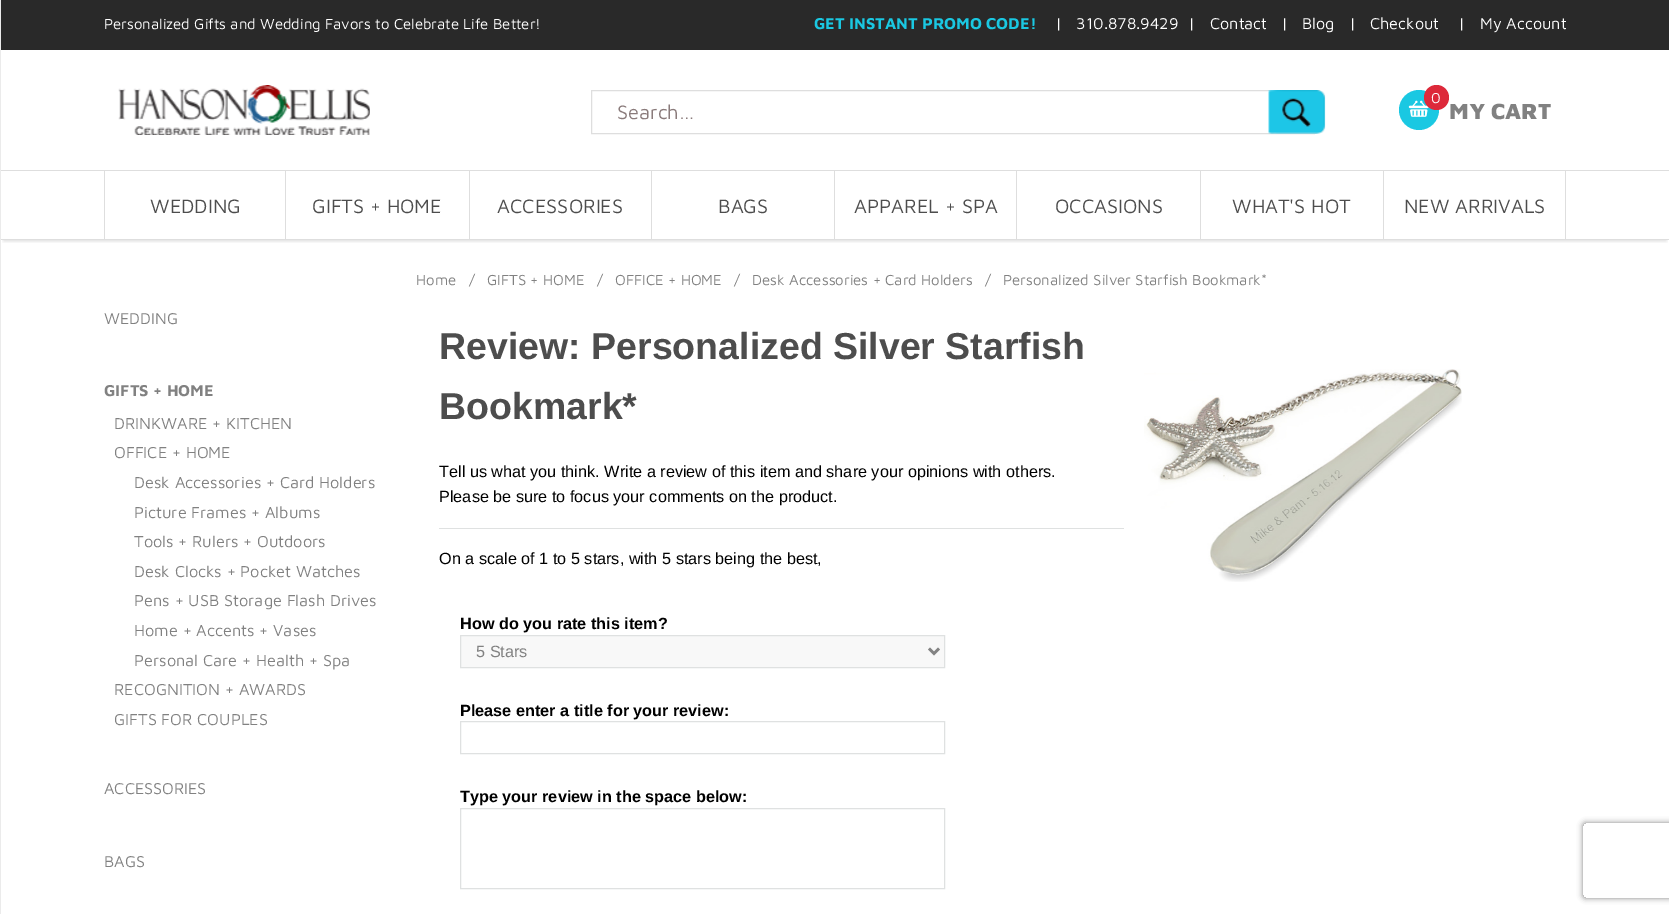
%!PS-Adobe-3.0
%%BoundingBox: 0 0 1669 914
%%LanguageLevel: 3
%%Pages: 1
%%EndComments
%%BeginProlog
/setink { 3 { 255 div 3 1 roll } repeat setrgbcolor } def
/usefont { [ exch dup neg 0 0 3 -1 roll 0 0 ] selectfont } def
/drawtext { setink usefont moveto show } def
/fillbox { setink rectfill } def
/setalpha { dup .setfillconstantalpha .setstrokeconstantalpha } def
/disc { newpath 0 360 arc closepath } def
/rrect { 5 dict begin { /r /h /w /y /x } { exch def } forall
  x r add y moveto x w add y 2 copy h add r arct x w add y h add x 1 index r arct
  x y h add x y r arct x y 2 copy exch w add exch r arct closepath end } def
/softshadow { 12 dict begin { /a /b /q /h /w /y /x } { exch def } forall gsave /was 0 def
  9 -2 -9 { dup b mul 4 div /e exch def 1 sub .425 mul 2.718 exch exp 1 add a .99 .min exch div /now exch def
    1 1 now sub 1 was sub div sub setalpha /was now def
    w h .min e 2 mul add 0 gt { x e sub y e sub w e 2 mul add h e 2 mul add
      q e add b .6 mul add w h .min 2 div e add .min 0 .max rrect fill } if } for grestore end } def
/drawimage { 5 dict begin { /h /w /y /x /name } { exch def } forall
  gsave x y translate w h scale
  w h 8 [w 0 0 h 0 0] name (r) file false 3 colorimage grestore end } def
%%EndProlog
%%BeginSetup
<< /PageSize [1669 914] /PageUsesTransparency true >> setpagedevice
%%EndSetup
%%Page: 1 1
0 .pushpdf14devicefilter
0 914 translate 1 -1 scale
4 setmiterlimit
0 0 1669 914 255 255 255 fillbox
0 0 1 914 235 235 235 fillbox
1 0 1668 50 41 41 41 fillbox
(Personalized Gifts and Wedding Favors to Celebrate Life Better!) 104 29 /MavenPro-Regular 15 255 255 255 drawtext
(GET INSTANT PROMO CODE!) 814 29 /MavenPro-Bold 16.25 26 200 226 drawtext
(|   310.878.9429  |) 1055 29 /MavenPro-Regular 16.25 255 255 255 drawtext
(Contact) 1210 29 /MavenPro-Regular 16.25 255 255 255 drawtext
(|) 1281 29 /MavenPro-Regular 16.25 255 255 255 drawtext
(Blog) 1302 29 /MavenPro-Regular 16.25 255 255 255 drawtext
(|) 1349 29 /MavenPro-Regular 16.25 255 255 255 drawtext
(Checkout) 1370 29 /MavenPro-Regular 16.25 255 255 255 drawtext
(|) 1458 29 /MavenPro-Regular 16.25 255 255 255 drawtext
(My Account) 1480 29 /MavenPro-Regular 16.25 255 255 255 drawtext
(assets/img1.rgb) 118 85 252 50 drawimage
222 222 222 setink
591.5 90.5 moveto 1314 90.5 lineto 1318.5 90.5 1322.5 94.5 1322.5 99 curveto 1322.5 125 lineto 1322.5 129.5 1318.5 133.5 1314 133.5 curveto 591.5 133.5 lineto closepath stroke
(Search…) 617 119 /MavenPro-Regular 20 138 123 123 drawtext
(assets/img2.rgb) 1268 90 58 44 drawimage
26 200 226 setink
1419 110 20 disc fill
(assets/img3.rgb) 1408 100 21 17 drawimage
221 41 58 setink
1436.5 97.5 12.5 disc fill
(0) 1431 103 /MavenPro-Regular 15 255 255 255 drawtext
(MY CART) 1449 119 /MavenPro-Black 22.5 129 129 129 drawtext
gsave
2 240 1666 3 rectclip
0 0 0 setink
4 175 1662 65 0 2.5 0.2 softshadow
grestore
1 170 1668 1 222 222 222 fillbox
1 239 1668 1 222 222 222 fillbox
285 171 1 68 222 222 222 fillbox
104 171 1 68 222 222 222 fillbox
(WEDDING) 150 213 /MavenPro-Regular 20 77 77 77 drawtext
469 171 1 68 222 222 222 fillbox
(GIFTS + HOME) 312 213 /MavenPro-Regular 20 77 77 77 drawtext
651 171 1 68 222 222 222 fillbox
(ACCESSORIES) 497 213 /MavenPro-Regular 20 77 77 77 drawtext
834 171 1 68 222 222 222 fillbox
(BAGS) 718 213 /MavenPro-Regular 20 77 77 77 drawtext
1016 171 1 68 222 222 222 fillbox
(APPAREL + SPA) 854 213 /MavenPro-Regular 20 77 77 77 drawtext
1200 171 1 68 222 222 222 fillbox
(OCCASIONS) 1055 213 /MavenPro-Regular 20 77 77 77 drawtext
1383 171 1 68 222 222 222 fillbox
(WHAT'S HOT) 1232 213 /MavenPro-Regular 20 77 77 77 drawtext
1565 171 1 68 222 222 222 fillbox
(NEW ARRIVALS) 1404 213 /MavenPro-Regular 20 77 77 77 drawtext
(WEDDING) 104 324 /MavenPro-Regular 16.25 129 129 129 drawtext
(GIFTS + HOME) 104 396 /MavenPro-Bold 16.25 129 129 129 drawtext
(DRINKWARE + KITCHEN) 114 429 /MavenPro-Regular 16.4 129 129 129 drawtext
(OFFICE + HOME) 114 458 /MavenPro-Regular 16.4 129 129 129 drawtext
(Desk Accessories + Card Holders) 134 488 /MavenPro-Regular 16.4 129 129 129 drawtext
(Picture Frames + Albums) 134 518 /MavenPro-Regular 16.4 129 129 129 drawtext
(Tools + Rulers + Outdoors) 134 547 /MavenPro-Regular 16.4 129 129 129 drawtext
(Desk Clocks + Pocket Watches) 134 577 /MavenPro-Regular 16.4 129 129 129 drawtext
(Pens + USB Storage Flash Drives) 134 606 /MavenPro-Regular 16.4 129 129 129 drawtext
(Home + Accents + Vases) 134 636 /MavenPro-Regular 16.4 129 129 129 drawtext
(Personal Care + Health + Spa) 134 666 /MavenPro-Regular 16.4 129 129 129 drawtext
(RECOGNITION + AWARDS) 114 695 /MavenPro-Regular 16.4 129 129 129 drawtext
(GIFTS FOR COUPLES) 114 725 /MavenPro-Regular 16.4 129 129 129 drawtext
(ACCESSORIES) 104 794 /MavenPro-Regular 16.25 129 129 129 drawtext
(BAGS) 104 867 /MavenPro-Regular 16.25 129 129 129 drawtext
(Home) 416 285 /MavenPro-Regular 15 129 129 129 drawtext
(/) 469 285 /MavenPro-Regular 15 129 129 129 drawtext
(GIFTS + HOME) 487 285 /MavenPro-Regular 15 129 129 129 drawtext
(/) 597 285 /MavenPro-Regular 15 129 129 129 drawtext
(OFFICE + HOME) 615 285 /MavenPro-Regular 15 129 129 129 drawtext
(/) 734 285 /MavenPro-Regular 15 129 129 129 drawtext
(Desk Accessories + Card Holders) 752 285 /MavenPro-Regular 15 129 129 129 drawtext
(/) 985 285 /MavenPro-Regular 15 129 129 129 drawtext
(Personalized Silver Starfish Bookmark*) 1003 285 /MavenPro-Regular 15 129 129 129 drawtext
(Review: Personalized Silver Starfish) 439 359 /LiberationSans-Bold 37.5 77 77 77 drawtext
(Bookmark*) 439 419 /LiberationSans-Bold 37.5 77 77 77 drawtext
(Tell us what you think. Write a review of this item and share your opinions with others.) 439 477 /LiberationSans-Regular 16.25 0 0 0 drawtext
(Please be sure to focus your comments on the product.) 439 502 /LiberationSans-Regular 16.25 0 0 0 drawtext
439 528 685 1 223 225 225 fillbox
(On a scale of 1 to 5 stars, with 5 stars being the best,) 439 564 /LiberationSans-Regular 16.25 0 0 0 drawtext
(How do you rate this item?) 460 629 /LiberationSans-Bold 16.25 0 0 0 drawtext
248 248 248 setink
460.5 635.5 moveto 944.5 635.5 lineto 944.5 667.5 lineto 460.5 667.5 lineto closepath gsave fill grestore
223 225 225 setink
stroke
131 131 131 setink
2.5 setlinewidth
929 648.5 moveto 934 653.5 lineto 939 648.5 lineto stroke
(5 Stars) 476 657 /LiberationSans-Regular 16.25 129 129 129 drawtext
(Please enter a title for your review:) 460 716 /LiberationSans-Bold 16.25 0 0 0 drawtext
223 225 225 setink
1 setlinewidth
460.5 721.5 484 32 rectstroke
(Type your review in the space below:) 460 802 /LiberationSans-Bold 16.25 0 0 0 drawtext
223 225 225 setink
460.5 808.5 484 80 rectstroke
(assets/img4.rgb) 1144 369 318 213 drawimage
gsave
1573 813 moveto 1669 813 lineto 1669 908 lineto 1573 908 lineto closepath 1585.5 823 moveto 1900.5 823 lineto 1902 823 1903 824 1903 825.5 curveto 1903 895.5 lineto 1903 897 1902 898 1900.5 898 curveto 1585.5 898 lineto 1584 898 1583 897 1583 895.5 curveto 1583 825.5 lineto 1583 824 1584 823 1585.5 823 curveto closepath eoclip newpath
128 128 128 setink
1583 823 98 75 2.5 3 1 softshadow
grestore
.poppdf14devicefilter showpage
%%EOF
